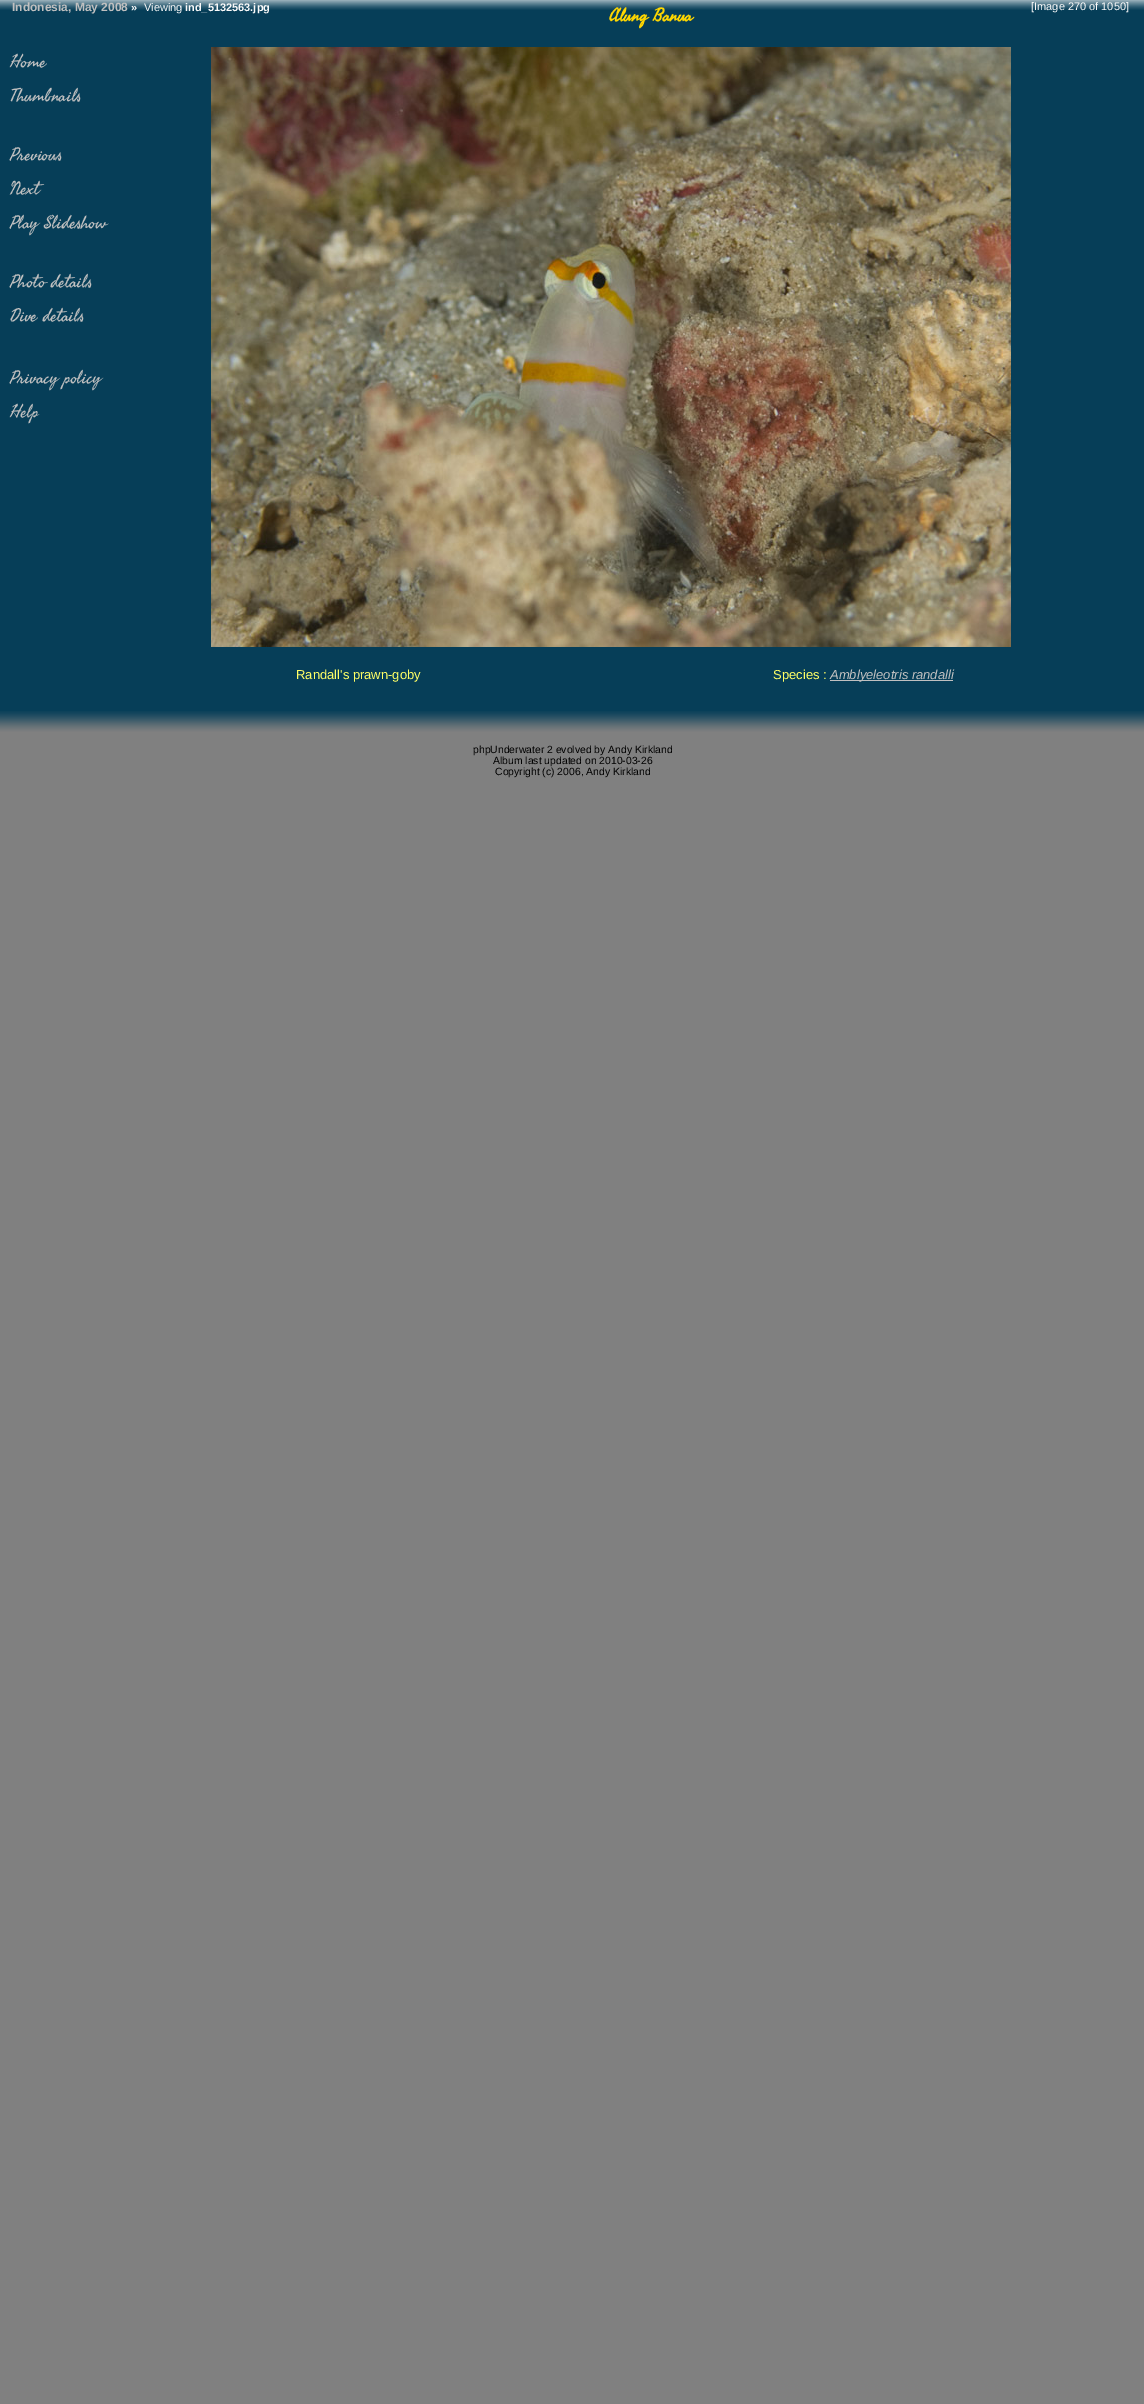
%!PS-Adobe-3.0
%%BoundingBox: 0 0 1144 2404
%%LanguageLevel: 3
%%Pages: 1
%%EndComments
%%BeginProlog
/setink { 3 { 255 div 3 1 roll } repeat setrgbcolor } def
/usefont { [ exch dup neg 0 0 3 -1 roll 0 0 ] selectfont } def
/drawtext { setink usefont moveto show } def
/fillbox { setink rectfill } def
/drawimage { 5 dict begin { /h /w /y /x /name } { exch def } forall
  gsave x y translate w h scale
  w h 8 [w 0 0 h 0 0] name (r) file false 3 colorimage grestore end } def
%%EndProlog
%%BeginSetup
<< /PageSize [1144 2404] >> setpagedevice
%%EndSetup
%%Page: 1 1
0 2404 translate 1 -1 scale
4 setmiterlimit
0 0 1144 2404 128 128 128 fillbox
0 10 1144 701 6 62 88 fillbox
(assets/img1.rgb) 0 0 1144 10 drawimage
(Indonesia, May 2008) 12 11 /LiberationSans-Bold 12 192 192 192 drawtext
(») 131 11 /LiberationSans-Bold 11 250 250 250 drawtext
(Viewing) 144 11 /LiberationSans-Regular 11 250 250 250 drawtext
(ind_5132563.jpg) 185 11 /LiberationSans-Bold 11 250 250 250 drawtext
(Alung Banua) 609 21 /SeaweedScript-Bold 18 255 215 0 drawtext
([Image 270 of 1050]) 1031 10 /LiberationSans-Regular 11 250 250 250 drawtext
(Home) 10 67 /SeaweedScript-Regular 18 192 192 192 drawtext
(Thumbnails) 10 101 /SeaweedScript-Regular 18 192 192 192 drawtext
(Previous) 10 160 /SeaweedScript-Regular 18 192 192 192 drawtext
(Next) 10 194 /SeaweedScript-Regular 18 192 192 192 drawtext
(Play Slideshow) 10 228 /SeaweedScript-Regular 18 192 192 192 drawtext
(Photo details) 10 287 /SeaweedScript-Regular 18 192 192 192 drawtext
(Dive details) 10 321 /SeaweedScript-Regular 18 192 192 192 drawtext
(Privacy policy) 10 383 /SeaweedScript-Regular 18 192 192 192 drawtext
(Help) 10 417 /SeaweedScript-Regular 18 192 192 192 drawtext
(assets/img2.rgb) 211 47 800 600 drawimage
(Randall's prawn-goby) 296 679 /LiberationSans-Regular 13 255 255 102 drawtext
(Species :) 773 679 /LiberationSans-Regular 13 255 255 102 drawtext
830 680 123 1 192 192 192 fillbox
(Amblyeleotris randalli) 830 679 /LiberationSans-Italic 13 192 192 192 drawtext
(assets/img3.rgb) 0 711 1144 23 drawimage
(phpUnderwater 2 evolved by Andy Kirkland) 473 753 /LiberationSans-Regular 10.4 0 0 0 drawtext
(Album last updated on 2010-03-26) 493 764 /LiberationSans-Regular 10.4 0 0 0 drawtext
(Copyright \(c\) 2006, Andy Kirkland) 495 775 /LiberationSans-Regular 10.4 0 0 0 drawtext
showpage
%%EOF
